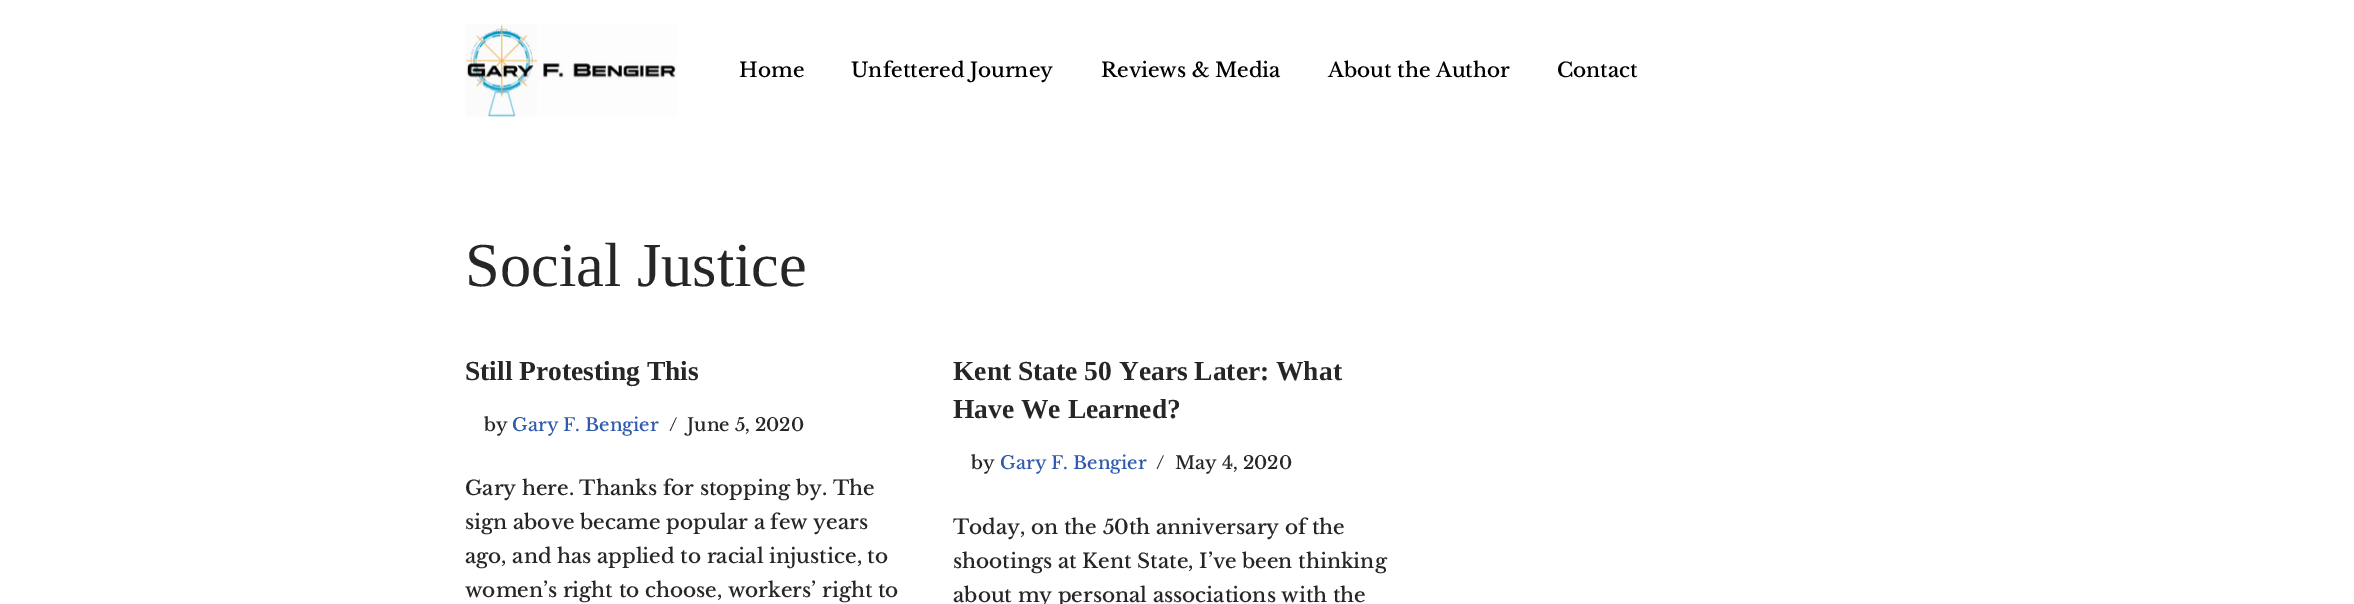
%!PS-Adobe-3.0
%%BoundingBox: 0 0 2354 604
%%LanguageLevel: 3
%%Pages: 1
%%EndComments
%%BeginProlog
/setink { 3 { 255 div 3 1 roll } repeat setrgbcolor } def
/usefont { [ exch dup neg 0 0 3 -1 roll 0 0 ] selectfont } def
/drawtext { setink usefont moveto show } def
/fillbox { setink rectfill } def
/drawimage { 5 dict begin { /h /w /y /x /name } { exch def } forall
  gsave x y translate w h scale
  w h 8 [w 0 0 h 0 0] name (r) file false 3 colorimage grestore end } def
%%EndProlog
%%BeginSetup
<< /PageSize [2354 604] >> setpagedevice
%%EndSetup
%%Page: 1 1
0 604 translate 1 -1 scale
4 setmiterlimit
0 0 2354 604 255 255 255 fillbox
(assets/img1.rgb) 465 24 212 93 drawimage
(Home) 739 77 /LibreBaskerville-Medium 20 0 0 0 drawtext
(Unfettered Journey) 851 77 /LibreBaskerville-Medium 20 0 0 0 drawtext
(Reviews & Media) 1101 77 /LibreBaskerville-Medium 20 0 0 0 drawtext
(About the Author) 1328 77 /LibreBaskerville-Medium 20 0 0 0 drawtext
(Contact) 1557 77 /LibreBaskerville-Medium 20 0 0 0 drawtext
(Social Justice) 465 286 /LiberationSerif-Regular 62.5 39 38 38 drawtext
(Still Protesting This) 465 380 /LiberationSerif-Bold 27.5 39 38 38 drawtext
(by) 484 431 /LibreBaskerville-Medium 18 39 38 38 drawtext
(Gary F. Bengier) 512 431 /LibreBaskerville-Medium 18 47 90 174 drawtext
(/) 669 431 /LibreBaskerville-Medium 18 39 38 38 drawtext
(June 5, 2020) 687 431 /LibreBaskerville-Medium 18 39 38 38 drawtext
(Gary here. Thanks for stopping by. The) 465 495 /LibreBaskerville-Medium 20 39 38 38 drawtext
(sign above became popular a few years) 465 529 /LibreBaskerville-Medium 20 39 38 38 drawtext
(ago, and has applied to racial injustice, to) 465 563 /LibreBaskerville-Medium 20 39 38 38 drawtext
(women’s right to choose, workers’ right to) 465 597 /LibreBaskerville-Medium 20 39 38 38 drawtext
(Kent State 50 Years Later: What) 953 380 /LiberationSerif-Bold 27.5 39 38 38 drawtext
(Have We Learned?) 953 418 /LiberationSerif-Bold 27.5 39 38 38 drawtext
(by) 971 469 /LibreBaskerville-Medium 18 39 38 38 drawtext
(Gary F. Bengier) 1000 469 /LibreBaskerville-Medium 18 47 90 174 drawtext
(/) 1156 469 /LibreBaskerville-Medium 18 39 38 38 drawtext
(May 4, 2020) 1175 469 /LibreBaskerville-Medium 18 39 38 38 drawtext
gsave
953 353 450 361 rectclip
(Today, on the 50th anniversary of the) 953 534 /LibreBaskerville-Medium 20 39 38 38 drawtext
grestore
(shootings at Kent State, I’ve been thinking) 953 568 /LibreBaskerville-Medium 20 39 38 38 drawtext
(about my personal associations with the) 953 602 /LibreBaskerville-Medium 20 39 38 38 drawtext
showpage
%%EOF
